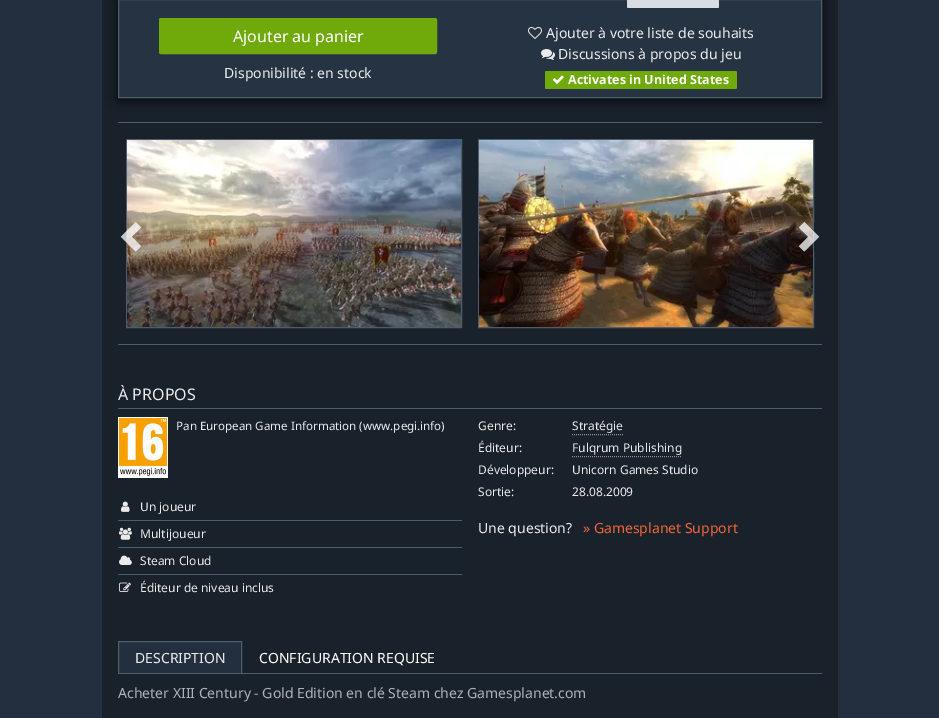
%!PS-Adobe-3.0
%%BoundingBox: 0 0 939 718
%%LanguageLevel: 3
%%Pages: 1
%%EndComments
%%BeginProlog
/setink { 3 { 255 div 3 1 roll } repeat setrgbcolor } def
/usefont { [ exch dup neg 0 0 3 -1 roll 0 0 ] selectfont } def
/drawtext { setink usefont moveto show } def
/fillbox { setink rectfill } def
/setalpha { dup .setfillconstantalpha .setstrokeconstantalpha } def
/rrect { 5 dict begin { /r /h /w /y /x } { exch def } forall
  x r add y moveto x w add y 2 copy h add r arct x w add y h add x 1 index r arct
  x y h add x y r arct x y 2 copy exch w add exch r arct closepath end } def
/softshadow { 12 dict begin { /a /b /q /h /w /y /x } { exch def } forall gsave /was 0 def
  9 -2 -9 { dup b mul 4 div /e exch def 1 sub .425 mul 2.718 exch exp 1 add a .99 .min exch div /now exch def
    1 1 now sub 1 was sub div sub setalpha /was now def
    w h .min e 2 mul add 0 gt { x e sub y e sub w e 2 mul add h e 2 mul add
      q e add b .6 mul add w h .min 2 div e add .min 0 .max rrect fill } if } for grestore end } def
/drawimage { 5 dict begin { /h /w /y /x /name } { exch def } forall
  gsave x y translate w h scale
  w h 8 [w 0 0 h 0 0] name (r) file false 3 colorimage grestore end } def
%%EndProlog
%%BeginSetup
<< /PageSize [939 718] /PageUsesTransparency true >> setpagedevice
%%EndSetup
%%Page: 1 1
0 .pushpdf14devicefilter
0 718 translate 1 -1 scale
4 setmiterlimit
0 0 939 718 35 47 62 fillbox
102 0 736 718 25 33 43 fillbox
0 0 0 setink
118 -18 704 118 0 6 0.75 softshadow
38 51 67 setink
118.5 -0.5 moveto 821.5 -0.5 lineto 821.5 97.5 lineto 118.5 97.5 lineto closepath gsave fill grestore
78 93 108 setink
stroke
111 170 10 setink
159.5 18.5 277 35 1.5 rrect gsave fill grestore
stroke
(Ajouter au panier) 233 42 /NotoSans-Regular 16 255 255 255 drawtext
(Disponibilité : en stock) 224 78 /NotoSans-Regular 14 235 235 235 drawtext
215 221 226 setink
627 -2 92 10 1.5 rrect fill
(assets/img1.rgb) 528 27 14 12 drawimage
(Ajouter à votre liste de souhaits) 546 38 /NotoSans-Regular 14 235 235 235 drawtext
(assets/img2.rgb) 541 49 14 11 drawimage
(Discussions à propos du jeu) 558 59 /NotoSans-Regular 14 235 235 235 drawtext
111 170 10 setink
545 71 192 18 1.5 rrect fill
(assets/img3.rgb) 552 75 12 9 drawimage
(Activates in United States) 568 84 /NotoSans-Bold 12.5 255 255 255 drawtext
118 122 704 1 78 93 108 fillbox
118 344 704 1 78 93 108 fillbox
126.5 139.5 335 188 rectstroke
(assets/img4.rgb) 127 140 334 187 drawimage
478.5 139.5 335 188 rectstroke
(assets/img5.rgb) 479 140 334 187 drawimage
(assets/img6.rgb) 120 222 22 30 drawimage
(assets/img7.rgb) 798 222 22 30 drawimage
118 408 704 1 78 93 108 fillbox
(À PROPOS) 118 400 /NotoSans-Regular 16 235 235 235 drawtext
(assets/img8.rgb) 118 417 50 61 drawimage
(Pan European Game Information \(www.pegi.info\)) 176 430 /NotoSans-Regular 11.6 235 235 235 drawtext
(assets/img9.rgb) 121 501 9 11 drawimage
(Un joueur) 140 511 /NotoSans-Regular 12 235 235 235 drawtext
118 520 344 1 78 93 108 fillbox
(assets/img10.rgb) 119 527 13 13 drawimage
(Multijoueur) 140 538 /NotoSans-Regular 12 235 235 235 drawtext
118 547 344 1 78 93 108 fillbox
(assets/img11.rgb) 119 555 13 10 drawimage
(Steam Cloud) 140 565 /NotoSans-Regular 12 235 235 235 drawtext
118 574 344 1 78 93 108 fillbox
(assets/img12.rgb) 119 582 12 10 drawimage
(Éditeur de niveau inclus) 140 592 /NotoSans-Regular 12 235 235 235 drawtext
(Genre:) 478 430 /NotoSans-Regular 12 235 235 235 drawtext
(Stratégie) 572 430 /NotoSans-Regular 12 235 235 235 drawtext
140 144 149 setink
[1 1] 0 setdash
572 434.5 moveto 623 434.5 lineto stroke
(Éditeur:) 478 452 /NotoSans-Regular 12 235 235 235 drawtext
(Fulqrum Publishing) 572 452 /NotoSans-Regular 12 235 235 235 drawtext
140 144 149 setink
572 456.5 moveto 682 456.5 lineto stroke
(Développeur:) 478 474 /NotoSans-Regular 12 235 235 235 drawtext
(Unicorn Games Studio) 572 474 /NotoSans-Regular 12 235 235 235 drawtext
(Sortie:) 478 496 /NotoSans-Regular 12 235 235 235 drawtext
(28.08.2009) 572 496 /NotoSans-Regular 12 235 235 235 drawtext
(Une question?) 478 533 /NotoSans-Regular 14 235 235 235 drawtext
(» Gamesplanet Support) 583 533 /NotoSans-Regular 14 242 102 56 drawtext
118 673 704 1 78 93 108 fillbox
119 642 122 31 35 47 62 fillbox
gsave
118 641 704 32 rectclip
78 93 108 setink
[] 0 setdash
118.5 641.5 123 32 rectstroke
grestore
(DESCRIPTION) 135 663 /NotoSans-Regular 14 235 235 235 drawtext
(CONFIGURATION REQUISE) 259 663 /NotoSans-Regular 14 255 255 255 drawtext
(Acheter XIII Century - Gold Edition en clé Steam chez Gamesplanet.com) 118 698 /NotoSans-Regular 14 172 178 184 drawtext
.poppdf14devicefilter showpage
%%EOF
